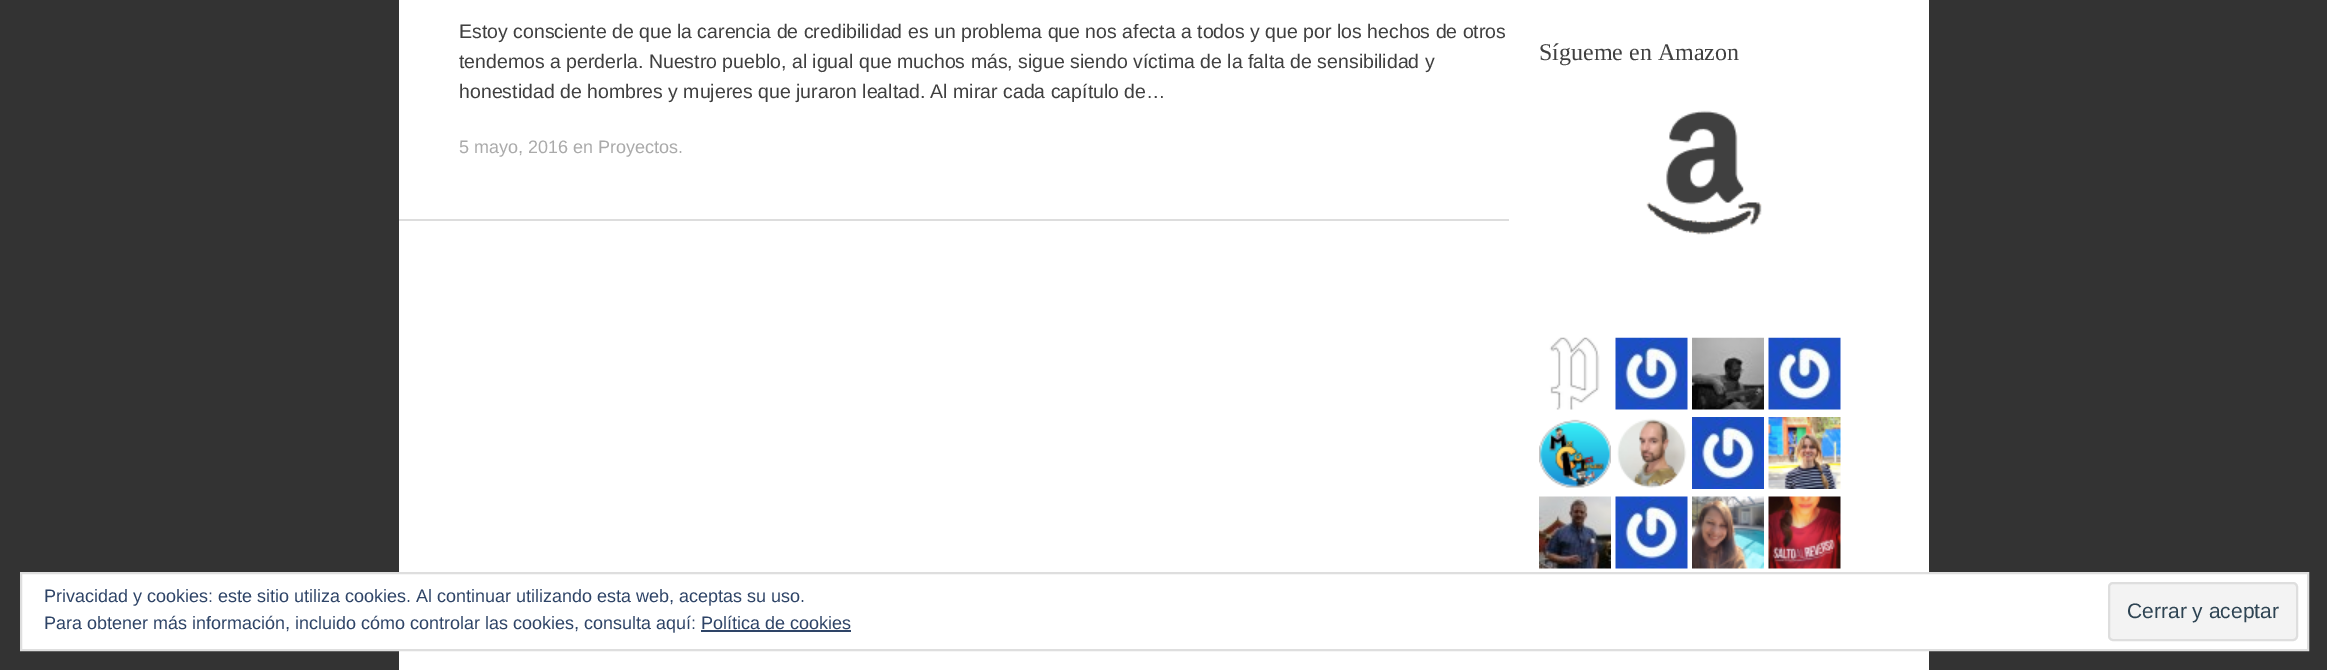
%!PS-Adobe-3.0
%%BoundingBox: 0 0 2327 670
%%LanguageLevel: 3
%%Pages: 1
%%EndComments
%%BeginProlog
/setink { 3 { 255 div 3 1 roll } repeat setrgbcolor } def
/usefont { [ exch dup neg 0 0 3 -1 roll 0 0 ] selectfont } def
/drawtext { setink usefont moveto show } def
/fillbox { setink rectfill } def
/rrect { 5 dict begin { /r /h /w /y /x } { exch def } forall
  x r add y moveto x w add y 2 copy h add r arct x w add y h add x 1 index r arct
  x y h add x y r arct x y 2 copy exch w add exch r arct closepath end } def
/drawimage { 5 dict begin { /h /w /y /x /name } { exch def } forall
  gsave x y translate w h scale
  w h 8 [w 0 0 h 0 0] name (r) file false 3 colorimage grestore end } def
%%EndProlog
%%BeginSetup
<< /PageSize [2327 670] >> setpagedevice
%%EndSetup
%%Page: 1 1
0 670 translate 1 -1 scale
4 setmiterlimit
0 0 2327 670 51 51 51 fillbox
399 0 1530 670 255 255 255 fillbox
399 219 1110 2 221 221 221 fillbox
(Estoy consciente de que la carencia de credibilidad es un problema que nos afecta a todos y que por los hechos de otros) 459 38 /LiberationSans-Regular 19.5 64 64 64 drawtext
(tendemos a perderla. Nuestro pueblo, al igual que muchos más, sigue siendo víctima de la falta de sensibilidad y) 459 68 /LiberationSans-Regular 19.5 64 64 64 drawtext
(honestidad de hombres y mujeres que juraron lealtad. Al mirar cada capítulo de…) 459 98 /LiberationSans-Regular 19.5 64 64 64 drawtext
(5 mayo, 2016 en Proyectos.) 459 153 /LiberationSans-Regular 18 170 170 170 drawtext
(Sígueme en Amazon) 1539 60 /LiberationSerif-Regular 24 64 64 64 drawtext
(assets/img1.rgb) 1646 110 116 125 drawimage
(assets/img2.rgb) 1549 337 51 73 drawimage
(assets/img3.rgb) 1615 337 73 73 drawimage
(assets/img4.rgb) 1692 337 72 73 drawimage
(assets/img3.rgb) 1768 337 73 73 drawimage
(assets/img5.rgb) 1539 419 72 69 drawimage
(assets/img6.rgb) 1617 418 70 70 drawimage
(assets/img7.rgb) 1692 417 72 72 drawimage
(assets/img8.rgb) 1768 417 73 72 drawimage
(assets/img9.rgb) 1539 496 72 73 drawimage
(assets/img10.rgb) 1615 496 73 73 drawimage
(assets/img11.rgb) 1692 496 72 73 drawimage
(assets/img12.rgb) 1768 496 73 73 drawimage
255 255 255 setink
21 573 moveto 2308 573 lineto 2308 650 lineto 21 650 lineto closepath gsave fill grestore
222 222 222 setink
2 setlinewidth
stroke
(Privacidad y cookies: este sitio utiliza cookies. Al continuar utilizando esta web, aceptas su uso.) 44 602 /LiberationSans-Regular 18 46 68 103 drawtext
(Para obtener más información, incluido cómo controlar las cookies, consulta aquí: Política de cookies) 44 629 /LiberationSans-Regular 18 46 68 103 drawtext
243 243 243 setink
2109 583 188 57 4 rrect gsave fill grestore
222 222 222 setink
stroke
(Cerrar y aceptar) 2127 618 /LiberationSans-Regular 21 46 68 83 drawtext
701 630 150 2 46 68 103 fillbox
showpage
%%EOF
